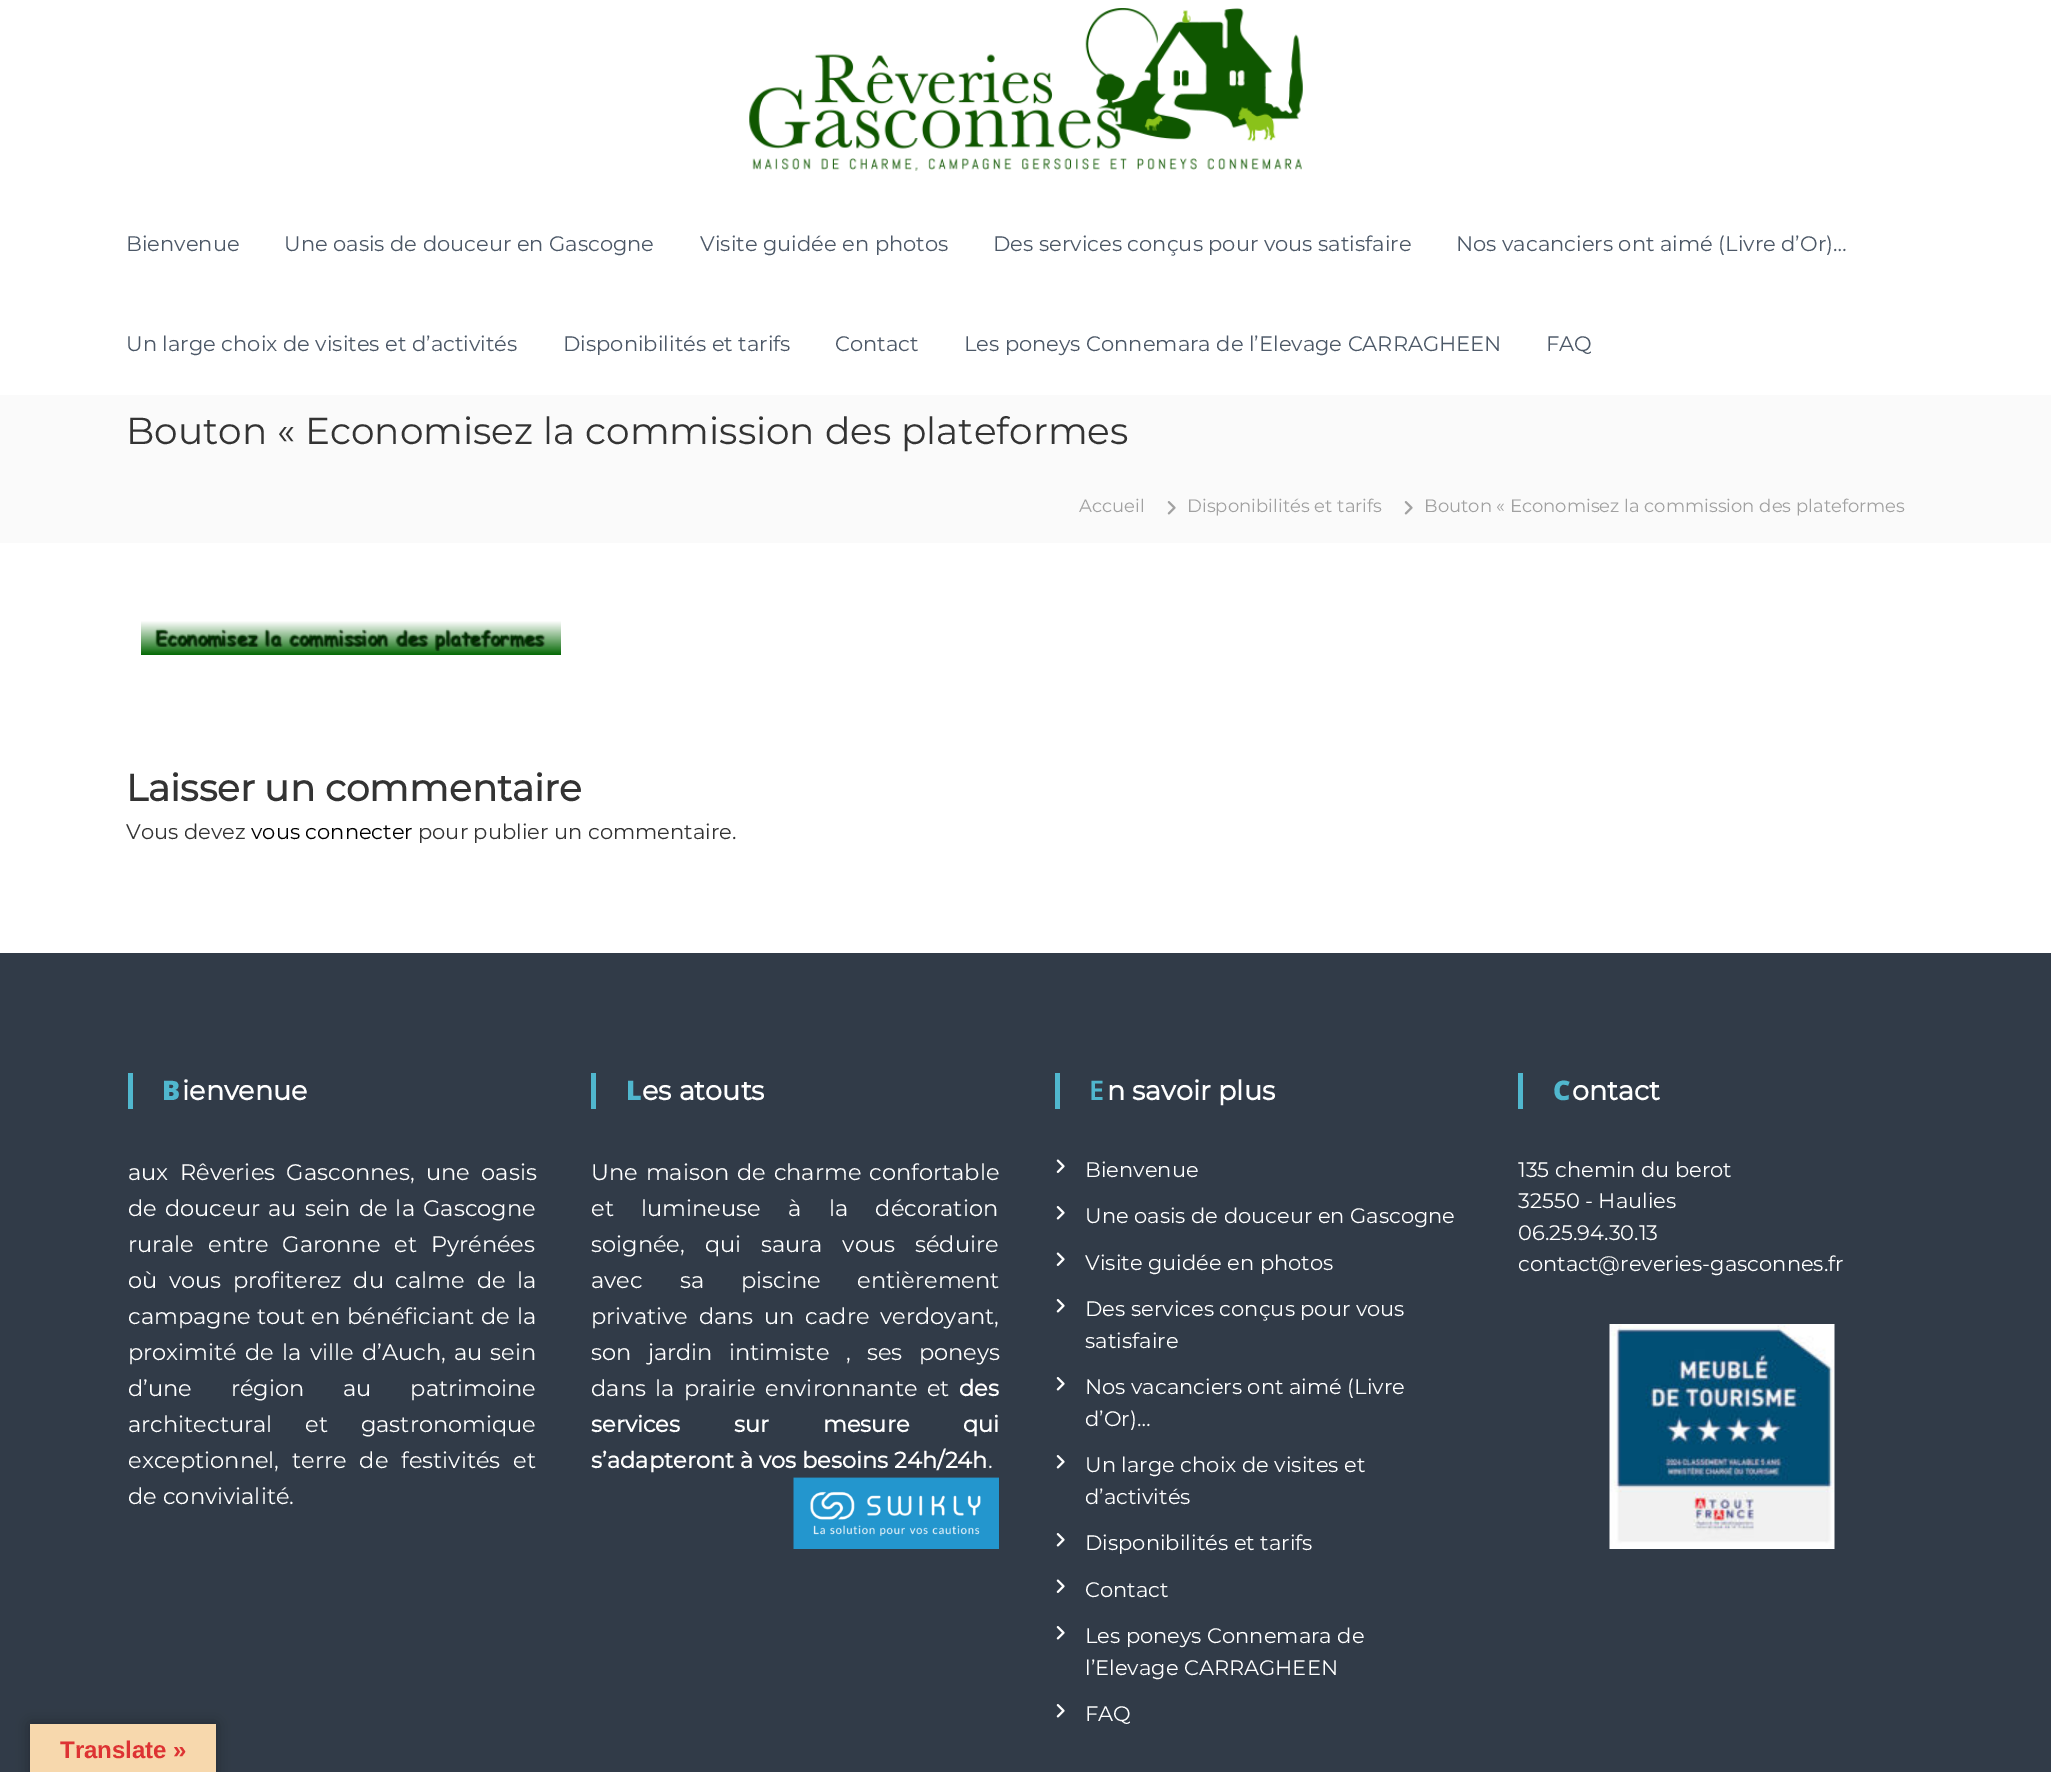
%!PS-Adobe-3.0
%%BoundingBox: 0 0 2051 1772
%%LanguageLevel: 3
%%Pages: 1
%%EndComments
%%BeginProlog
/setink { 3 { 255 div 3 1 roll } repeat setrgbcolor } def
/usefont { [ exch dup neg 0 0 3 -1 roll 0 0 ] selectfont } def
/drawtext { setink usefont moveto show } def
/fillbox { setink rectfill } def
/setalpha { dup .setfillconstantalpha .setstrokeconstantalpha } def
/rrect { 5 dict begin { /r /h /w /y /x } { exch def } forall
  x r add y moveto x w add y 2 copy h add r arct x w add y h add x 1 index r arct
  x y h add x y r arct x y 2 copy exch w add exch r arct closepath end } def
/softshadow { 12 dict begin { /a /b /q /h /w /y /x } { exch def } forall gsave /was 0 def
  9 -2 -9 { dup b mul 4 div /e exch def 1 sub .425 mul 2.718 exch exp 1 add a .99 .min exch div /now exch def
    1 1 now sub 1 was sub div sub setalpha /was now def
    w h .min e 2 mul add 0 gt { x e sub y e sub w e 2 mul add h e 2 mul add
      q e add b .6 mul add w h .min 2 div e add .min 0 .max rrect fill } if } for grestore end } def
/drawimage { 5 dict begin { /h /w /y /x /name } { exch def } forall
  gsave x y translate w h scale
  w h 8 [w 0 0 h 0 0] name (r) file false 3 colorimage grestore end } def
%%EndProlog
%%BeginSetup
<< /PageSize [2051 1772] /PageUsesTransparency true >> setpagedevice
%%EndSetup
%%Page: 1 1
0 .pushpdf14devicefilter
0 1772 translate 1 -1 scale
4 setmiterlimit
0 0 2051 1772 255 255 255 fillbox
(assets/img1.rgb) 749 8 554 163 drawimage
(Bienvenue) 126 251 /Montserrat-Regular 21 76 88 103 drawtext
(Une oasis de douceur en Gascogne) 284 251 /Montserrat-Regular 21 76 88 103 drawtext
(Visite guidée en photos) 700 251 /Montserrat-Regular 21 76 88 103 drawtext
(Des services conçus pour vous satisfaire) 993 251 /Montserrat-Regular 21 76 88 103 drawtext
(Nos vacanciers ont aimé \(Livre d’Or\)…) 1456 251 /Montserrat-Regular 21 76 88 103 drawtext
(Un large choix de visites et d’activités) 126 351 /Montserrat-Regular 21 76 88 103 drawtext
(Disponibilités et tarifs) 563 351 /Montserrat-Regular 21 76 88 103 drawtext
(Contact) 835 351 /Montserrat-Regular 21 76 88 103 drawtext
(Les poneys Connemara de l’Elevage CARRAGHEEN) 964 351 /Montserrat-Regular 21 76 88 103 drawtext
(FAQ) 1546 351 /Montserrat-Regular 21 76 88 103 drawtext
0 395 2051 148 250 250 250 fillbox
(Bouton « Economisez la commission des plateformes) 126 444 /Montserrat-Regular 37.5 51 51 51 drawtext
(Accueil) 1079 512 /Montserrat-Regular 18 161 161 161 drawtext
(assets/img2.rgb) 1167 501 9 14 drawimage
(Disponibilités et tarifs) 1187 512 /Montserrat-Regular 18 161 161 161 drawtext
(assets/img2.rgb) 1404 501 9 14 drawimage
(Bouton « Economisez la commission des plateformes) 1424 512 /Montserrat-Regular 18 161 161 161 drawtext
(assets/img3.rgb) 141 621 420 34 drawimage
(Laisser un commentaire) 126 801 /Montserrat-Bold 37.5 51 51 51 drawtext
(Vous devez) 126 839 /Montserrat-Regular 21 51 51 51 drawtext
(vous connecter) 251 839 /Montserrat-Regular 21 0 0 0 drawtext
(pour publier un commentaire.) 418 839 /Montserrat-Regular 21 51 51 51 drawtext
0 953 2051 819 49 59 72 fillbox
128 1073 5 36 80 183 206 fillbox
(B) 162 1100 /NotoSans-Black 27 80 183 206 drawtext
(ienvenue) 182 1100 /Montserrat-Bold 27 255 255 255 drawtext
/Montserrat-Regular 22.5 usefont
128 1180 moveto 5.5 0 32 (aux Rêveries Gasconnes, une oasis) widthshow
128 1216 moveto 2.25 0 32 (de douceur au sein de la Gascogne) widthshow
128 1252 moveto 8 0 32 (rurale entre Garonne et Pyrénées) widthshow
128 1288 moveto 5.75 0 32 (où vous profiterez du calme de la) widthshow
128 1324 moveto 0.75 0 32 (campagne tout en bénéficiant de la) widthshow
128 1360 moveto 2.25 0 32 (proximité de la ville d’Auch, au sein) widthshow
128 1396 moveto 33 0 32 (d’une région au patrimoine) widthshow
128 1432 moveto 27 0 32 (architectural et gastronomique) widthshow
128 1468 moveto 7 0 32 (exceptionnel, terre de festivités et) widthshow
(de convivialité.) 128 1504 /Montserrat-Regular 22.5 255 255 255 drawtext
591 1073 5 36 80 183 206 fillbox
(L) 626 1100 /NotoSans-Black 27 80 183 206 drawtext
(es atouts) 642 1100 /Montserrat-Bold 27 255 255 255 drawtext
/Montserrat-Regular 22.5 usefont
591 1180 moveto 2 0 32 (Une maison de charme confortable) widthshow
591 1216 moveto 21.5 0 32 (et lumineuse à la décoration) widthshow
591 1252 moveto 14 0 32 (soignée, qui saura vous séduire) widthshow
591 1288 moveto 31 0 32 (avec sa piscine entièrement) widthshow
591 1324 moveto 5 0 32 (privative dans un cadre verdoyant,) widthshow
591 1360 moveto 10.5 0 32 (son jardin intimiste , ses poneys) widthshow
591 1396 moveto 3.5 0 32 (dans la prairie environnante et) widthshow
(des) 959 1396 /Montserrat-Bold 22.5 255 255 255 drawtext
591 1432 moveto 48 0 32 (services sur mesure qui) widthshow
(s’adapteront à vos besoins 24h/24h) 591 1468 /Montserrat-Bold 22.5 255 255 255 drawtext
(.) 988 1468 /Montserrat-Regular 22.5 255 255 255 drawtext
(assets/img4.rgb) 793 1477 206 72 drawimage
1055 1073 5 36 80 183 206 fillbox
(E) 1089 1100 /NotoSans-SemiBold 27 80 183 206 drawtext
(n savoir plus) 1107 1100 /Montserrat-Bold 27 255 255 255 drawtext
(assets/img5.rgb) 1056 1159 9 14 drawimage
(Bienvenue) 1085 1177 /Montserrat-Regular 21 255 255 255 drawtext
(assets/img6.rgb) 1056 1206 9 14 drawimage
(Une oasis de douceur en Gascogne) 1085 1223 /Montserrat-Regular 21 255 255 255 drawtext
(assets/img5.rgb) 1056 1252 9 14 drawimage
(Visite guidée en photos) 1085 1270 /Montserrat-Regular 21 255 255 255 drawtext
(assets/img6.rgb) 1056 1299 9 14 drawimage
(Des services conçus pour vous) 1085 1316 /Montserrat-Regular 21 255 255 255 drawtext
(satisfaire) 1085 1348 /Montserrat-Regular 21 255 255 255 drawtext
(assets/img6.rgb) 1056 1377 9 14 drawimage
(Nos vacanciers ont aimé \(Livre) 1085 1394 /Montserrat-Regular 21 255 255 255 drawtext
(d’Or\)…) 1085 1426 /Montserrat-Regular 21 255 255 255 drawtext
(assets/img6.rgb) 1056 1455 9 14 drawimage
(Un large choix de visites et) 1085 1472 /Montserrat-Regular 21 255 255 255 drawtext
(d’activités) 1085 1504 /Montserrat-Regular 21 255 255 255 drawtext
(assets/img6.rgb) 1056 1533 9 14 drawimage
(Disponibilités et tarifs) 1085 1550 /Montserrat-Regular 21 255 255 255 drawtext
(assets/img5.rgb) 1056 1579 9 14 drawimage
(Contact) 1085 1597 /Montserrat-Regular 21 255 255 255 drawtext
(assets/img6.rgb) 1056 1626 9 14 drawimage
(Les poneys Connemara de) 1085 1643 /Montserrat-Regular 21 255 255 255 drawtext
(l’Elevage CARRAGHEEN) 1085 1675 /Montserrat-Regular 21 255 255 255 drawtext
(assets/img6.rgb) 1056 1704 9 14 drawimage
(FAQ) 1085 1721 /Montserrat-Regular 21 255 255 255 drawtext
1518 1073 5 36 80 183 206 fillbox
(C) 1553 1100 /NotoSans-Black 27 80 183 206 drawtext
(ontact) 1572 1100 /Montserrat-Bold 27 255 255 255 drawtext
(135 chemin du berot) 1518 1177 /Montserrat-Regular 21 255 255 255 drawtext
(32550 - Haulies) 1518 1208 /Montserrat-Regular 21 255 255 255 drawtext
(06.25.94.30.13) 1518 1240 /Montserrat-Regular 21 255 255 255 drawtext
(contact@reveries-gasconnes.fr) 1518 1271 /Montserrat-Regular 21 255 255 255 drawtext
(assets/img7.rgb) 1609 1324 226 225 drawimage
0 0 0 setink
30 1724 186 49 0 7 0.3 softshadow
30 1724 186 48 247 216 173 fillbox
(Translate ») 60 1758 /LiberationSans-Bold 24 221 51 51 drawtext
.poppdf14devicefilter showpage
%%EOF
